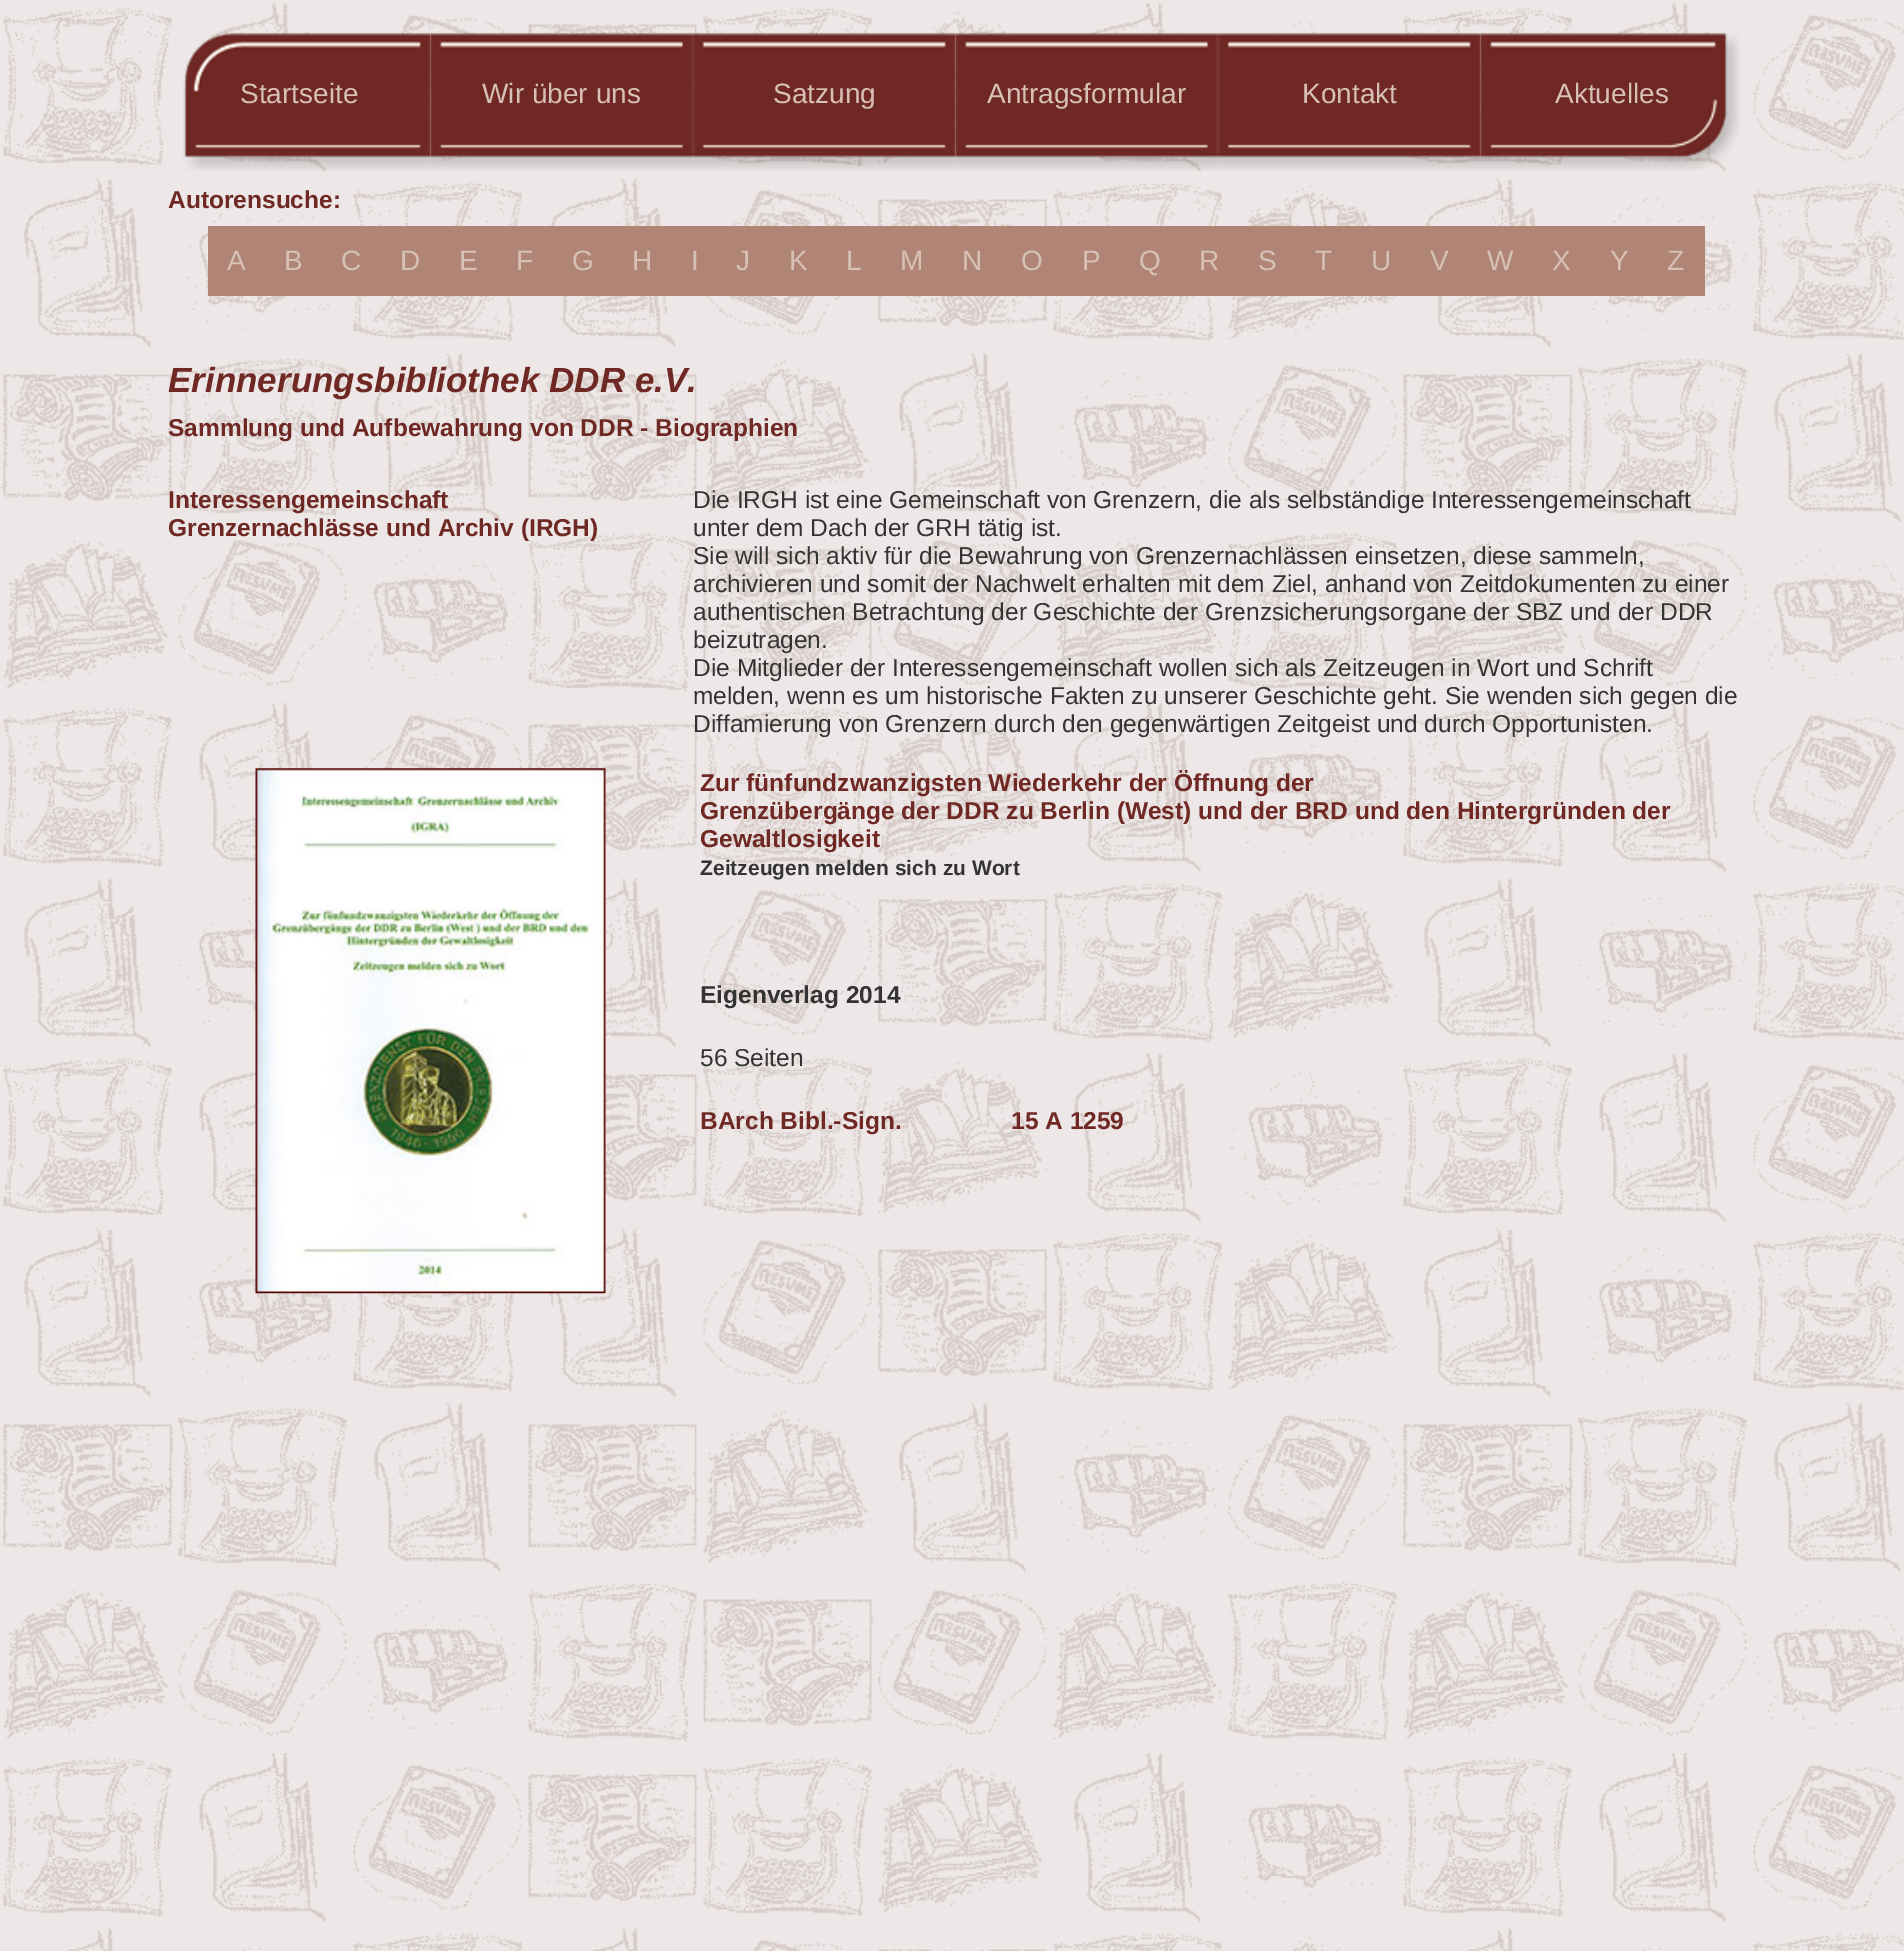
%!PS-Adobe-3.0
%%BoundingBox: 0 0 1904 1951
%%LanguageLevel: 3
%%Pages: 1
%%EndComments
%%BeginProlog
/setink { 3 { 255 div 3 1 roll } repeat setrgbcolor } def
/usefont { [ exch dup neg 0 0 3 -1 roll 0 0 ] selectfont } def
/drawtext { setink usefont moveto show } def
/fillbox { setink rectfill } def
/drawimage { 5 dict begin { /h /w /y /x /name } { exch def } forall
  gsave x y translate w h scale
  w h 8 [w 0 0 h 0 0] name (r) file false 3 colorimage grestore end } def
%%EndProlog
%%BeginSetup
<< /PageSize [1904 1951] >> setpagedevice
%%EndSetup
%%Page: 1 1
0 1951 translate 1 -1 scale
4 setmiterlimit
0 0 1904 1951 255 255 255 fillbox
(assets/img1.rgb) 0 0 1904 1951 drawimage
(assets/img2.rgb) 183 32 248 139 drawimage
(Startseite) 240 103 /LiberationSans-Regular 28 215 193 183 drawtext
(assets/img3.rgb) 430 32 263 139 drawimage
(Wir über uns) 482 103 /LiberationSans-Regular 28 215 193 183 drawtext
(assets/img4.rgb) 693 32 263 139 drawimage
(Satzung) 773 103 /LiberationSans-Regular 28 215 193 183 drawtext
(assets/img5.rgb) 955 32 263 139 drawimage
(Antragsformular) 987 103 /LiberationSans-Regular 28 215 193 183 drawtext
(assets/img6.rgb) 1218 32 263 139 drawimage
(Kontakt) 1302 103 /LiberationSans-Regular 28 215 193 183 drawtext
(assets/img7.rgb) 1480 32 260 139 drawimage
(Aktuelles) 1555 103 /LiberationSans-Regular 28 215 193 183 drawtext
(Autorensuche:) 168 208 /LiberationSans-Bold 24.5 111 40 36 drawtext
208 226 1497 70 176 133 117 fillbox
(A) 227 270 /LiberationSans-Regular 28 215 193 183 drawtext
(B) 284 270 /LiberationSans-Regular 28 215 193 183 drawtext
(C) 341 270 /LiberationSans-Regular 28 215 193 183 drawtext
(D) 400 270 /LiberationSans-Regular 28 215 193 183 drawtext
(E) 459 270 /LiberationSans-Regular 28 215 193 183 drawtext
(F) 516 270 /LiberationSans-Regular 28 215 193 183 drawtext
(G) 572 270 /LiberationSans-Regular 28 215 193 183 drawtext
(H) 632 270 /LiberationSans-Regular 28 215 193 183 drawtext
(I) 691 270 /LiberationSans-Regular 28 215 193 183 drawtext
(J) 736 270 /LiberationSans-Regular 28 215 193 183 drawtext
(K) 789 270 /LiberationSans-Regular 28 215 193 183 drawtext
(L) 846 270 /LiberationSans-Regular 28 215 193 183 drawtext
(M) 900 270 /LiberationSans-Regular 28 215 193 183 drawtext
(N) 962 270 /LiberationSans-Regular 28 215 193 183 drawtext
(O) 1021 270 /LiberationSans-Regular 28 215 193 183 drawtext
(P) 1082 270 /LiberationSans-Regular 28 215 193 183 drawtext
(Q) 1139 270 /LiberationSans-Regular 28 215 193 183 drawtext
(R) 1199 270 /LiberationSans-Regular 28 215 193 183 drawtext
(S) 1258 270 /LiberationSans-Regular 28 215 193 183 drawtext
(T) 1315 270 /LiberationSans-Regular 28 215 193 183 drawtext
(U) 1371 270 /LiberationSans-Regular 28 215 193 183 drawtext
(V) 1430 270 /LiberationSans-Regular 28 215 193 183 drawtext
(W) 1487 270 /LiberationSans-Regular 28 215 193 183 drawtext
(X) 1552 270 /LiberationSans-Regular 28 215 193 183 drawtext
(Y) 1610 270 /LiberationSans-Regular 28 215 193 183 drawtext
(Z) 1667 270 /LiberationSans-Regular 28 215 193 183 drawtext
(Erinnerungsbibliothek DDR e.V.) 168 392 /LiberationSans-BoldItalic 35 111 40 36 drawtext
(Sammlung und Aufbewahrung von DDR - Biographien) 168 436 /LiberationSans-Bold 24.5 111 40 36 drawtext
(Interessengemeinschaft) 168 508 /LiberationSans-Bold 24.5 111 40 36 drawtext
(Grenzernachlässe und Archiv \(IRGH\)) 168 536 /LiberationSans-Bold 24.5 111 40 36 drawtext
(Die IRGH ist eine Gemeinschaft von Grenzern, die als selbständige Interessengemeinschaft) 693 508 /LiberationSans-Regular 24.5 51 51 51 drawtext
(unter dem Dach der GRH tätig ist.) 693 536 /LiberationSans-Regular 24.5 51 51 51 drawtext
(Sie will sich aktiv für die Bewahrung von Grenzernachlässen einsetzen, diese sammeln,) 693 564 /LiberationSans-Regular 24.5 51 51 51 drawtext
(archivieren und somit der Nachwelt erhalten mit dem Ziel, anhand von Zeitdokumenten zu einer) 693 592 /LiberationSans-Regular 24.5 51 51 51 drawtext
(authentischen Betrachtung der Geschichte der Grenzsicherungsorgane der SBZ und der DDR) 693 620 /LiberationSans-Regular 24.5 51 51 51 drawtext
(beizutragen.) 693 648 /LiberationSans-Regular 24.5 51 51 51 drawtext
(Die Mitglieder der Interessengemeinschaft wollen sich als Zeitzeugen in Wort und Schrift) 693 676 /LiberationSans-Regular 24.5 51 51 51 drawtext
(melden, wenn es um historische Fakten zu unserer Geschichte geht. Sie wenden sich gegen die) 693 704 /LiberationSans-Regular 24.5 51 51 51 drawtext
(Diffamierung von Grenzern durch den gegenwärtigen Zeitgeist und durch Opportunisten.) 693 732 /LiberationSans-Regular 24.5 51 51 51 drawtext
(assets/img8.rgb) 255 768 351 526 drawimage
(Zur fünfundzwanzigsten Wiederkehr der Öffnung der) 700 791 /LiberationSans-Bold 24.5 111 40 36 drawtext
(Grenzübergänge der DDR zu Berlin \(West\) und der BRD und den Hintergründen der) 700 819 /LiberationSans-Bold 24.5 111 40 36 drawtext
(Gewaltlosigkeit) 700 847 /LiberationSans-Bold 24.5 111 40 36 drawtext
(Zeitzeugen melden sich zu Wort) 700 875 /LiberationSans-Bold 21 51 51 51 drawtext
(Eigenverlag 2014) 700 1003 /LiberationSans-Bold 24.5 51 51 51 drawtext
(56 Seiten) 700 1066 /LiberationSans-Regular 24.5 51 51 51 drawtext
(BArch Bibl.-Sign.) 700 1129 /LiberationSans-Bold 24.5 111 40 36 drawtext
(15 A 1259) 1011 1129 /LiberationSans-Bold 24.5 111 40 36 drawtext
showpage
%%EOF
